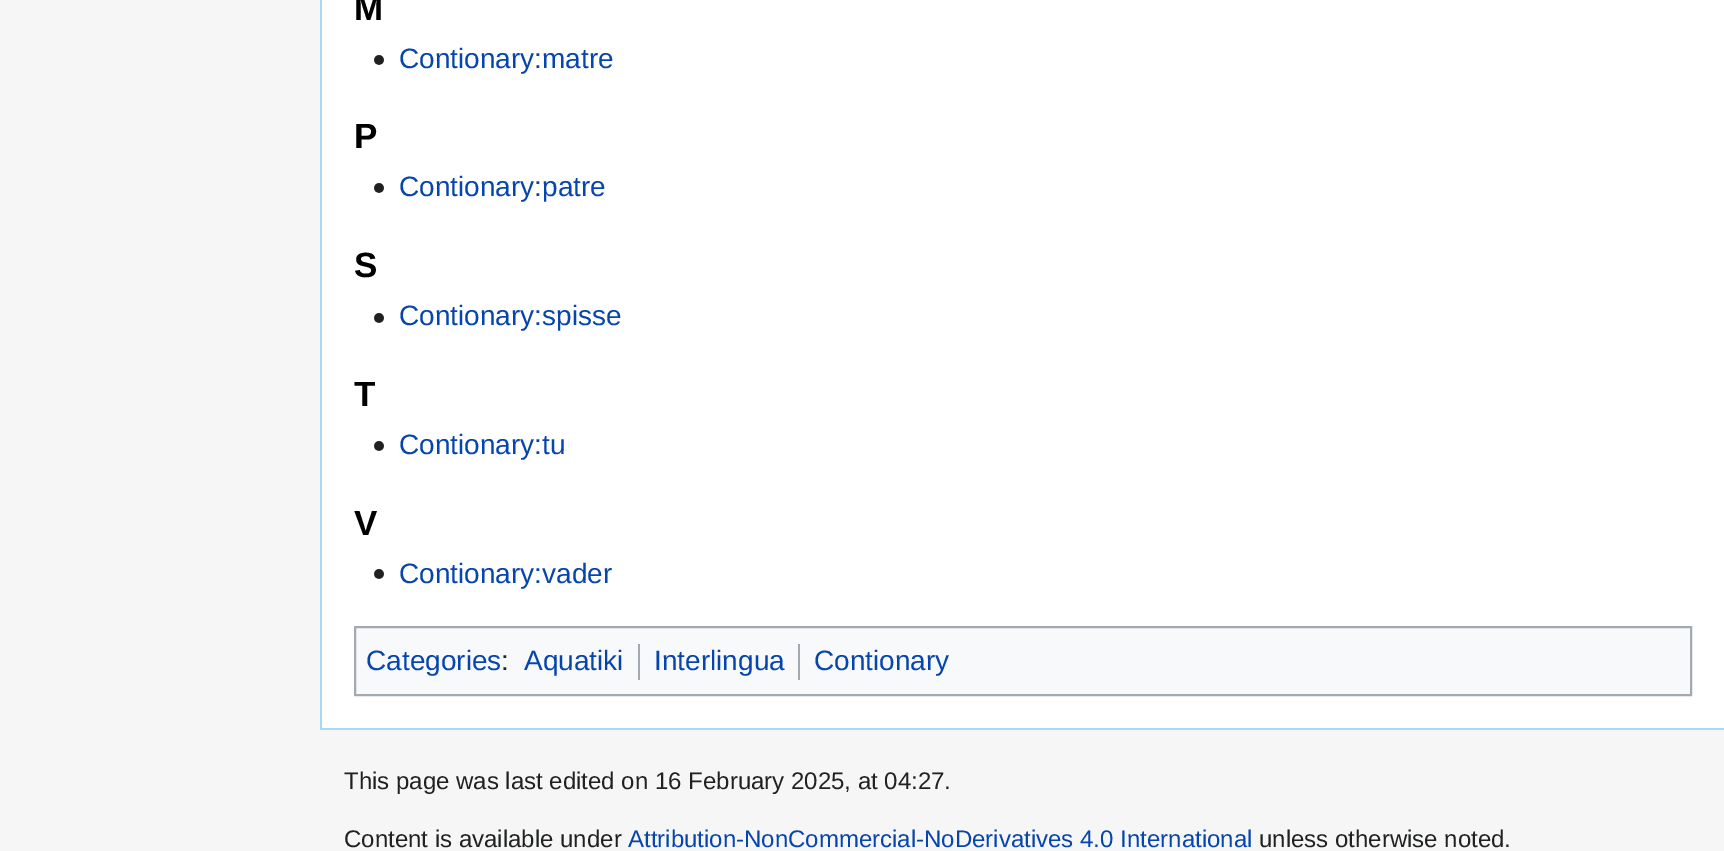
%!PS-Adobe-3.0
%%BoundingBox: 0 0 1724 851
%%LanguageLevel: 3
%%Pages: 1
%%EndComments
%%BeginProlog
/setink { 3 { 255 div 3 1 roll } repeat setrgbcolor } def
/usefont { [ exch dup neg 0 0 3 -1 roll 0 0 ] selectfont } def
/drawtext { setink usefont moveto show } def
/fillbox { setink rectfill } def
/drawimage { 5 dict begin { /h /w /y /x /name } { exch def } forall
  gsave x y translate w h scale
  w h 8 [w 0 0 h 0 0] name (r) file false 3 colorimage grestore end } def
%%EndProlog
%%BeginSetup
<< /PageSize [1724 851] >> setpagedevice
%%EndSetup
%%Page: 1 1
0 851 translate 1 -1 scale
4 setmiterlimit
0 0 1724 851 246 246 246 fillbox
322 0 1402 728 255 255 255 fillbox
320 728 1404 2 167 215 249 fillbox
320 0 2 730 167 215 249 fillbox
(M) 354 20 /LiberationSans-Bold 35 0 0 0 drawtext
(assets/img1.rgb) 374 55 10 10 drawimage
(Contionary:matre) 399 68 /LiberationSans-Regular 28 6 69 173 drawtext
(P) 354 148 /LiberationSans-Bold 35 0 0 0 drawtext
(assets/img1.rgb) 374 183 10 10 drawimage
(Contionary:patre) 399 196 /LiberationSans-Regular 28 6 69 173 drawtext
(S) 354 277 /LiberationSans-Bold 35 0 0 0 drawtext
(assets/img1.rgb) 374 313 10 10 drawimage
(Contionary:spisse) 399 325 /LiberationSans-Regular 28 6 69 173 drawtext
(T) 354 406 /LiberationSans-Bold 35 0 0 0 drawtext
(assets/img1.rgb) 374 441 10 10 drawimage
(Contionary:tu) 399 454 /LiberationSans-Regular 28 6 69 173 drawtext
(V) 354 535 /LiberationSans-Bold 35 0 0 0 drawtext
(assets/img1.rgb) 374 569 10 10 drawimage
(Contionary:vader) 399 583 /LiberationSans-Regular 28 6 69 173 drawtext
248 249 250 setink
355 627 moveto 1691 627 lineto 1691 695 lineto 355 695 lineto closepath gsave fill grestore
162 169 177 setink
2 setlinewidth
stroke
(Categories) 366 670 /LiberationSans-Regular 28 6 69 173 drawtext
(:) 501 670 /LiberationSans-Regular 28 32 33 34 drawtext
(Aquatiki) 524 670 /LiberationSans-Regular 28 6 69 173 drawtext
638 644 2 36 162 169 177 fillbox
(Interlingua) 654 670 /LiberationSans-Regular 28 6 69 173 drawtext
798 644 2 36 162 169 177 fillbox
(Contionary) 814 670 /LiberationSans-Regular 28 6 69 173 drawtext
(This page was last edited on 16 February 2025, at 04:27.) 344 789 /LiberationSans-Regular 24 32 33 34 drawtext
(Content is available under) 344 847 /LiberationSans-Regular 24 32 33 34 drawtext
(Attribution-NonCommercial-NoDerivatives 4.0 International) 628 847 /LiberationSans-Regular 24 6 69 173 drawtext
(unless otherwise noted.) 1259 847 /LiberationSans-Regular 24 32 33 34 drawtext
showpage
%%EOF
